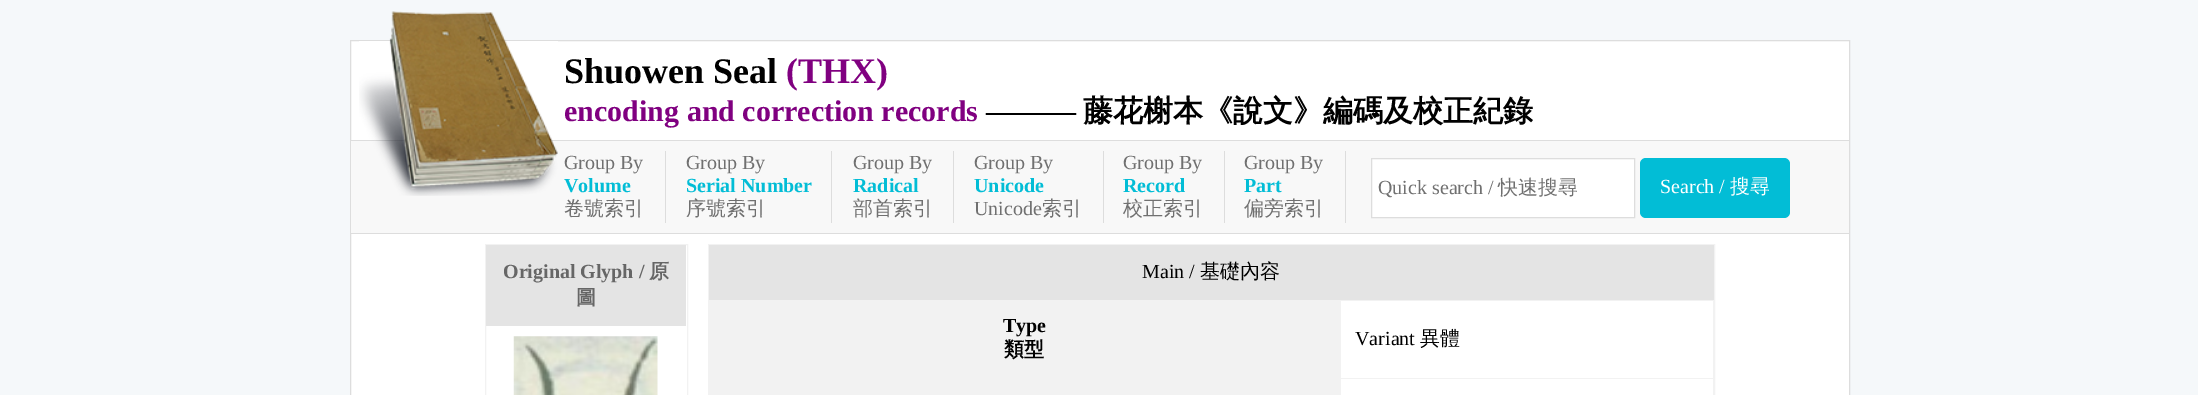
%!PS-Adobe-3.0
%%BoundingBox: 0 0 2198 395
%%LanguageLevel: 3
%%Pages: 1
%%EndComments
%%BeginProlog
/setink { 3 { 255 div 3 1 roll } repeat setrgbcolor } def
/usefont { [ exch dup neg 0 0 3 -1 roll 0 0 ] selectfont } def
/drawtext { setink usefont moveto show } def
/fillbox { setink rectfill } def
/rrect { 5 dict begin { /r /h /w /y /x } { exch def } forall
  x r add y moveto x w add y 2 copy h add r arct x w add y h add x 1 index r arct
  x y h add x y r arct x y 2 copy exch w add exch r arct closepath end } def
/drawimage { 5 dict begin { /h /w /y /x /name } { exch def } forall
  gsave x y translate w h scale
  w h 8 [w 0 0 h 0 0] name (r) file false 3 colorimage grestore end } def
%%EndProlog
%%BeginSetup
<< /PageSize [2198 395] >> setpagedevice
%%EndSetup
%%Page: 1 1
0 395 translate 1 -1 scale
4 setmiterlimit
0 0 2198 395 245 248 250 fillbox
255 255 255 setink
350.5 40.5 moveto 1849.5 40.5 lineto 1849.5 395.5 lineto 350.5 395.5 lineto closepath gsave fill grestore
221 221 221 setink
stroke
351 141 1498 92 248 248 248 fillbox
351 140 1498 1 221 221 221 fillbox
(assets/img1.rgb) 359 11 199 185 drawimage
(Shuowen Seal) 564 83 /LiberationSerif-Bold 36 0 0 0 drawtext
(\(THX\)) 786 83 /LiberationSerif-Bold 36 128 0 128 drawtext
(encoding and correction records) 564 121 /LiberationSerif-Bold 30 128 0 128 drawtext
(———) 986 121 /LiberationSerif-Bold 30 0 0 0 drawtext
(藤花榭本《說文》編碼及校正紀錄) 1083 121 /WenQuanYiZenHei-Bold 30 0 0 0 drawtext
351 233 1498 1 221 221 221 fillbox
665 151 1 72 221 221 221 fillbox
(Group By) 564 169 /LiberationSerif-Regular 20 112 112 112 drawtext
(Volume) 564 192 /LiberationSerif-Bold 20 2 189 214 drawtext
(卷號索引) 564 215 /WenQuanYiZenHei-Medium 20 112 112 112 drawtext
831 151 1 72 221 221 221 fillbox
(Group By) 686 169 /LiberationSerif-Regular 20 112 112 112 drawtext
(Serial Number) 686 192 /LiberationSerif-Bold 20 2 189 214 drawtext
(序號索引) 686 215 /WenQuanYiZenHei-Medium 20 112 112 112 drawtext
953 151 1 72 221 221 221 fillbox
(Group By) 853 169 /LiberationSerif-Regular 20 112 112 112 drawtext
(Radical) 853 192 /LiberationSerif-Bold 20 2 189 214 drawtext
(部首索引) 853 215 /WenQuanYiZenHei-Medium 20 112 112 112 drawtext
1103 151 1 72 221 221 221 fillbox
(Group By) 974 169 /LiberationSerif-Regular 20 112 112 112 drawtext
(Unicode) 974 192 /LiberationSerif-Bold 20 2 189 214 drawtext
(Unicode) 974 215 /LiberationSerif-Regular 20 112 112 112 drawtext
(索引) 1042 215 /WenQuanYiZenHei-Medium 20 112 112 112 drawtext
1224 151 1 72 221 221 221 fillbox
(Group By) 1123 169 /LiberationSerif-Regular 20 112 112 112 drawtext
(Record) 1123 192 /LiberationSerif-Bold 20 2 189 214 drawtext
(校正索引) 1123 215 /WenQuanYiZenHei-Medium 20 112 112 112 drawtext
1345 151 1 72 221 221 221 fillbox
(Group By) 1244 169 /LiberationSerif-Regular 20 112 112 112 drawtext
(Part) 1244 192 /LiberationSerif-Bold 20 2 189 214 drawtext
(偏旁索引) 1244 215 /WenQuanYiZenHei-Medium 20 112 112 112 drawtext
255 255 255 setink
1371.5 158.5 moveto 1634.5 158.5 lineto 1634.5 217.5 lineto 1371.5 217.5 lineto closepath gsave fill grestore
221 221 221 setink
stroke
(Quick search /) 1378 194 /LiberationSerif-Regular 20 112 112 112 drawtext
(快速搜尋) 1498 194 /WenQuanYiZenHei-Medium 20 112 112 112 drawtext
2 189 214 setink
1640 158 150 60 6 rrect fill
(Search /) 1660 193 /LiberationSerif-Regular 20 255 255 255 drawtext
(搜尋) 1730 193 /WenQuanYiZenHei-Medium 20 255 255 255 drawtext
242 242 242 setink
485.5 244.5 202 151 rectstroke
486 245 200 81 228 228 228 fillbox
(Original Glyph /) 503 278 /LiberationSerif-Bold 20 102 102 102 drawtext
(原) 649 278 /WenQuanYiZenHei-Bold 20 102 102 102 drawtext
(圖) 576 304 /WenQuanYiZenHei-Bold 20 102 102 102 drawtext
(assets/img2.rgb) 513 336 145 59 drawimage
242 242 242 setink
708.5 244.5 1006 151 rectstroke
709 245 1005 55 228 228 228 fillbox
(Main /) 1142 278 /LiberationSerif-Regular 20 0 0 0 drawtext
(基礎內容) 1200 278 /WenQuanYiZenHei-Medium 20 0 0 0 drawtext
709 300 631 95 242 242 242 fillbox
(Type) 1003 332 /LiberationSerif-Bold 20 0 0 0 drawtext
(類型) 1004 356 /WenQuanYiZenHei-Bold 20 0 0 0 drawtext
1340 300 374 1 242 242 242 fillbox
1340 378 374 1 242 242 242 fillbox
1713 378 1 17 242 242 242 fillbox
1713 300 1 79 242 242 242 fillbox
1340 378 1 17 242 242 242 fillbox
1340 300 1 79 242 242 242 fillbox
(Variant) 1355 345 /LiberationSerif-Regular 20 0 0 0 drawtext
(異體) 1420 345 /WenQuanYiZenHei-Medium 20 0 0 0 drawtext
showpage
%%EOF
